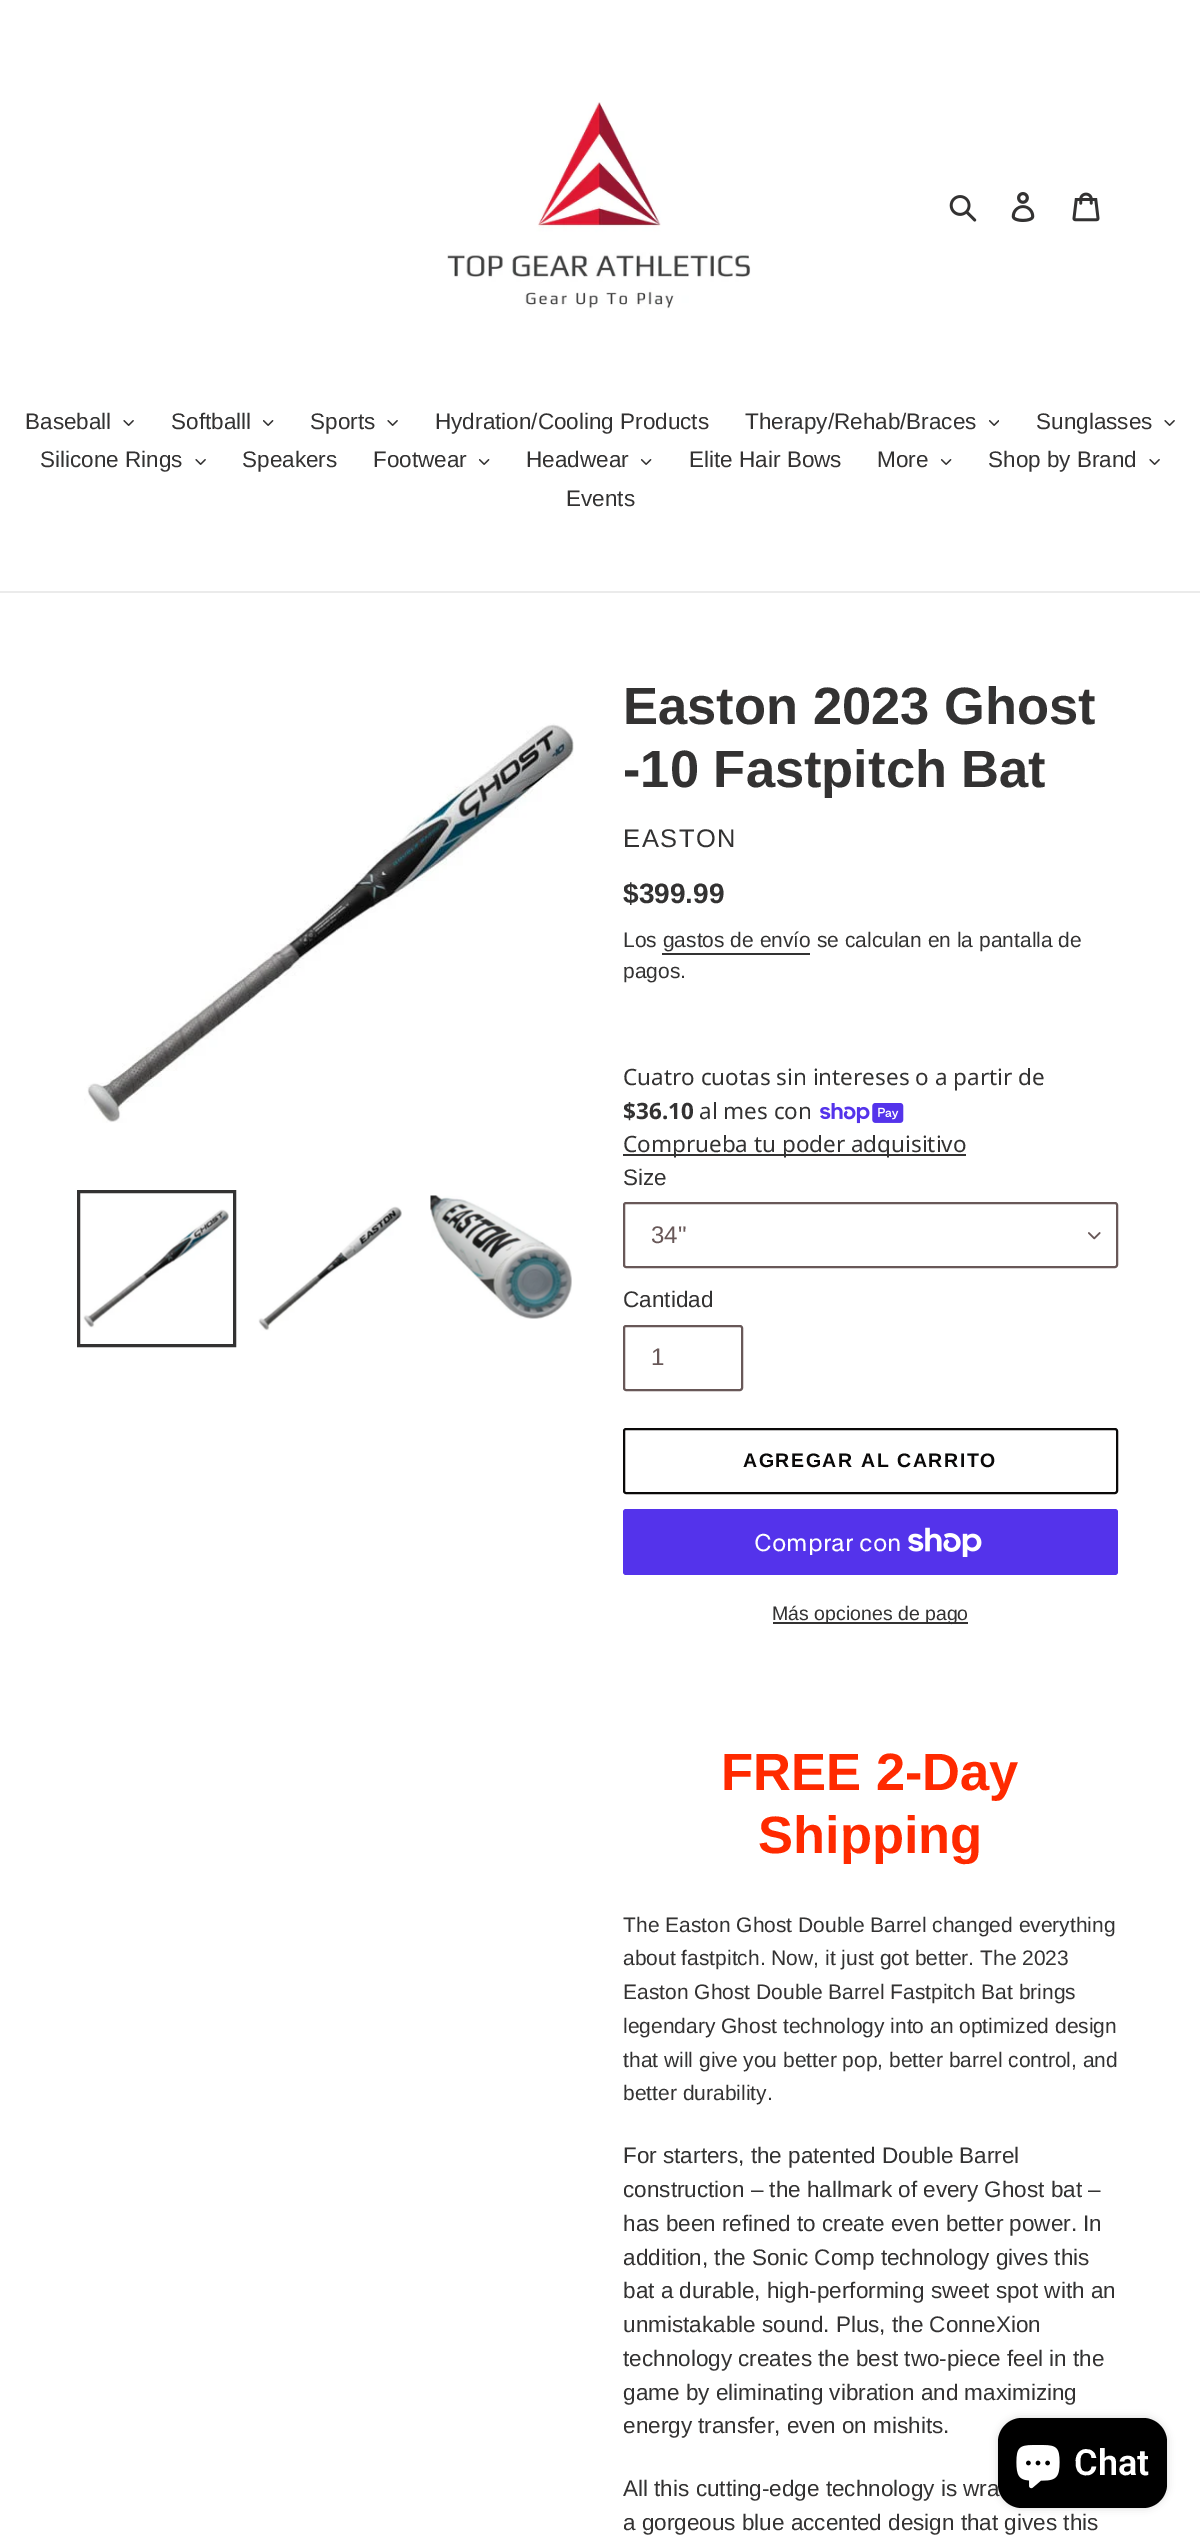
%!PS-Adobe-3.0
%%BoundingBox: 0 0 1200 2539
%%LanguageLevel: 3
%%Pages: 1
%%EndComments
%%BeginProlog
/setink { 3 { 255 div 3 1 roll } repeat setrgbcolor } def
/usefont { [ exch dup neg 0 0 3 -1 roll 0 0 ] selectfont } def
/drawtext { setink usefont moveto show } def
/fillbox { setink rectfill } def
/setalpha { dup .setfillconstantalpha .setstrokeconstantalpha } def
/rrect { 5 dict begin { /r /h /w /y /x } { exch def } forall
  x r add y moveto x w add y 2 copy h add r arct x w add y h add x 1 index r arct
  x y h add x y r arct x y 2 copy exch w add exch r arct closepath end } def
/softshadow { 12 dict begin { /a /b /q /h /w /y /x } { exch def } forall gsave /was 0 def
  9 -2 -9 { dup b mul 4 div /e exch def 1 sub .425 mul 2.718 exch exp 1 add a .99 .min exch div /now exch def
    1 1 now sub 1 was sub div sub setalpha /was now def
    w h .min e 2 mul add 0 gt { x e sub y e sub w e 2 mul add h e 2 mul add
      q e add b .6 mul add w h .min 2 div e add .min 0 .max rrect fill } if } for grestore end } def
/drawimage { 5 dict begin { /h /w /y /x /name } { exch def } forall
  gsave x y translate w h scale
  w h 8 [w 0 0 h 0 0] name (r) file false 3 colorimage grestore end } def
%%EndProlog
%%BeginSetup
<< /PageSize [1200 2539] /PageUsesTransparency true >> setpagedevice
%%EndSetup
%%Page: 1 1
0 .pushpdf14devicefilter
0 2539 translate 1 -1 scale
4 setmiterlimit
0 0 1200 2539 255 255 255 fillbox
(assets/img1.rgb) 447 102 304 207 drawimage
(assets/img2.rgb) 949 195 28 27 drawimage
(assets/img3.rgb) 1011 192 24 30 drawimage
(assets/img4.rgb) 1072 192 28 30 drawimage
0 591 1200 2 235 235 235 fillbox
(Baseball) 25 429 /LiberationSans-Regular 22.5 51 50 50 drawtext
(assets/img5.rgb) 123 420 11 6 drawimage
(Softballl) 171 429 /LiberationSans-Regular 22.5 51 50 50 drawtext
(assets/img6.rgb) 263 420 11 6 drawimage
(Sports) 310 429 /LiberationSans-Regular 22.5 51 50 50 drawtext
(assets/img5.rgb) 387 420 11 6 drawimage
(Hydration/Cooling Products) 435 429 /LiberationSans-Regular 22.5 51 50 50 drawtext
(Therapy/Rehab/Braces) 745 429 /LiberationSans-Regular 22.5 51 50 50 drawtext
(assets/img7.rgb) 989 420 10 6 drawimage
(Sunglasses) 1036 429 /LiberationSans-Regular 22.5 51 50 50 drawtext
(assets/img5.rgb) 1164 420 11 6 drawimage
(Silicone Rings) 40 467 /LiberationSans-Regular 22.5 51 50 50 drawtext
(assets/img5.rgb) 195 459 11 6 drawimage
(Speakers) 242 467 /LiberationSans-Regular 22.5 51 50 50 drawtext
(Footwear) 373 467 /LiberationSans-Regular 22.5 51 50 50 drawtext
(assets/img6.rgb) 479 459 11 6 drawimage
(Headwear) 526 467 /LiberationSans-Regular 22.5 51 50 50 drawtext
(assets/img6.rgb) 641 459 11 6 drawimage
(Elite Hair Bows) 689 467 /LiberationSans-Regular 22.5 51 50 50 drawtext
(More) 877 467 /LiberationSans-Regular 22.5 51 50 50 drawtext
(assets/img6.rgb) 941 459 11 6 drawimage
(Shop by Brand) 988 467 /LiberationSans-Regular 22.5 51 50 50 drawtext
(assets/img5.rgb) 1149 459 11 6 drawimage
(Events) 566 506 /LiberationSans-Regular 22.5 51 50 50 drawtext
(assets/img8.rgb) 84 723 490 400 drawimage
3 setlinewidth
78.5 1191.5 156 154 rectstroke
(assets/img9.rgb) 83 1209 146 119 drawimage
(assets/img10.rgb) 258 1206 144 125 drawimage
(assets/img11.rgb) 430 1195 142 124 drawimage
(Easton 2023 Ghost) 623 724 /LiberationSans-Bold 52.5 51 50 50 drawtext
(-10 Fastpitch Bat) 623 787 /LiberationSans-Bold 52.5 51 50 50 drawtext
/LiberationSans-Regular 25.5 usefont
623 847 moveto 1.5 0 (EASTON) ashow
($399.99) 623 903 /LiberationSans-Bold 28 51 50 50 drawtext
(Los gastos de envío se calculan en la pantalla de) 623 947 /LiberationSans-Regular 21 51 50 50 drawtext
662 953 148 2 51 50 50 fillbox
(pagos.) 623 978 /LiberationSans-Regular 21 51 50 50 drawtext
(Cuatro cuotas sin intereses o a partir de) 623 1085 /NotoSans-Regular 22.5 51 50 50 drawtext
($36.10) 623 1119 /NotoSans-Bold 22.5 51 50 50 drawtext
(al mes con) 699 1119 /NotoSans-Regular 22.5 51 50 50 drawtext
(assets/img12.rgb) 820 1103 84 21 drawimage
623 1154 343 2 51 50 50 fillbox
(Comprueba tu poder adquisitivo) 623 1152 /NotoSans-Regular 22.5 51 50 50 drawtext
(Size) 623 1185 /LiberationSans-Regular 22.5 51 50 50 drawtext
(assets/img13.rgb) 1088 1232 13 8 drawimage
104 88 88 setink
2 setlinewidth
624 1203 493 64 2 rrect stroke
(34") 651 1243 /LiberationSans-Regular 24 104 88 88 drawtext
(Cantidad) 623 1307 /LiberationSans-Regular 22.5 51 50 50 drawtext
104 88 88 setink
624 1326 118 64 2 rrect stroke
(1) 651 1365 /LiberationSans-Regular 24 104 88 88 drawtext
10 9 9 setink
624 1429 493 64 2 rrect stroke
/LiberationSans-Bold 19.5 usefont
743 1467 moveto 1.6 0 (AGREGAR AL CARRITO) ashow
84 51 235 setink
623 1509 495 66 3 rrect fill
(Comprar con) 754 1551 /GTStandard-Regular 24 255 255 255 drawtext
(assets/img14.rgb) 908 1527 74 30 drawimage
773 1622 195 2 51 50 50 fillbox
(Más opciones de pago) 772 1620 /LiberationSans-Regular 19.5 51 50 50 drawtext
(FREE 2-Day) 721 1790 /LiberationSans-Bold 52.5 255 42 0 drawtext
(Shipping) 758 1853 /LiberationSans-Bold 52.5 255 42 0 drawtext
(The Easton Ghost Double Barrel changed everything) 623 1932 /LiberationSans-Regular 21 51 50 50 drawtext
(about fastpitch. Now, it just got better. The 2023) 623 1965 /LiberationSans-Regular 21 51 50 50 drawtext
(Easton Ghost Double Barrel Fastpitch Bat brings) 623 1999 /LiberationSans-Regular 21 51 50 50 drawtext
(legendary Ghost technology into an optimized design) 623 2033 /LiberationSans-Regular 21 51 50 50 drawtext
(that will give you better pop, better barrel control, and) 623 2067 /LiberationSans-Regular 21 51 50 50 drawtext
(better durability.) 623 2100 /LiberationSans-Regular 21 51 50 50 drawtext
(For starters, the patented Double Barrel) 623 2163 /LiberationSans-Regular 22.5 51 50 50 drawtext
(construction – the hallmark of every Ghost bat –) 623 2197 /LiberationSans-Regular 22.5 51 50 50 drawtext
(has been refined to create even better power. In) 623 2231 /LiberationSans-Regular 22.5 51 50 50 drawtext
(addition, the Sonic Comp technology gives this) 623 2265 /LiberationSans-Regular 22.5 51 50 50 drawtext
(bat a durable, high-performing sweet spot with an) 623 2298 /LiberationSans-Regular 22.5 51 50 50 drawtext
(unmistakable sound. Plus, the ConneXion) 623 2332 /LiberationSans-Regular 22.5 51 50 50 drawtext
(technology creates the best two-piece feel in the) 623 2366 /LiberationSans-Regular 22.5 51 50 50 drawtext
(game by eliminating vibration and maximizing) 623 2400 /LiberationSans-Regular 22.5 51 50 50 drawtext
(energy transfer, even on mishits.) 623 2433 /LiberationSans-Regular 22.5 51 50 50 drawtext
(All this cutting-edge technology is wra) 623 2496 /LiberationSans-Regular 22.5 51 50 50 drawtext
(a gorgeous blue accented design that gives this) 623 2530 /LiberationSans-Regular 22.5 51 50 50 drawtext
0 0 0 setink
998 2418 169 90 24 4 0.15 softshadow
998 2418 169 90 24 rrect fill
(assets/img15.rgb) 1016 2445 44 44 drawimage
(Chat) 1074 2475 /Roboto-SemiBold 36 255 255 255 drawtext
.poppdf14devicefilter showpage
%%EOF
